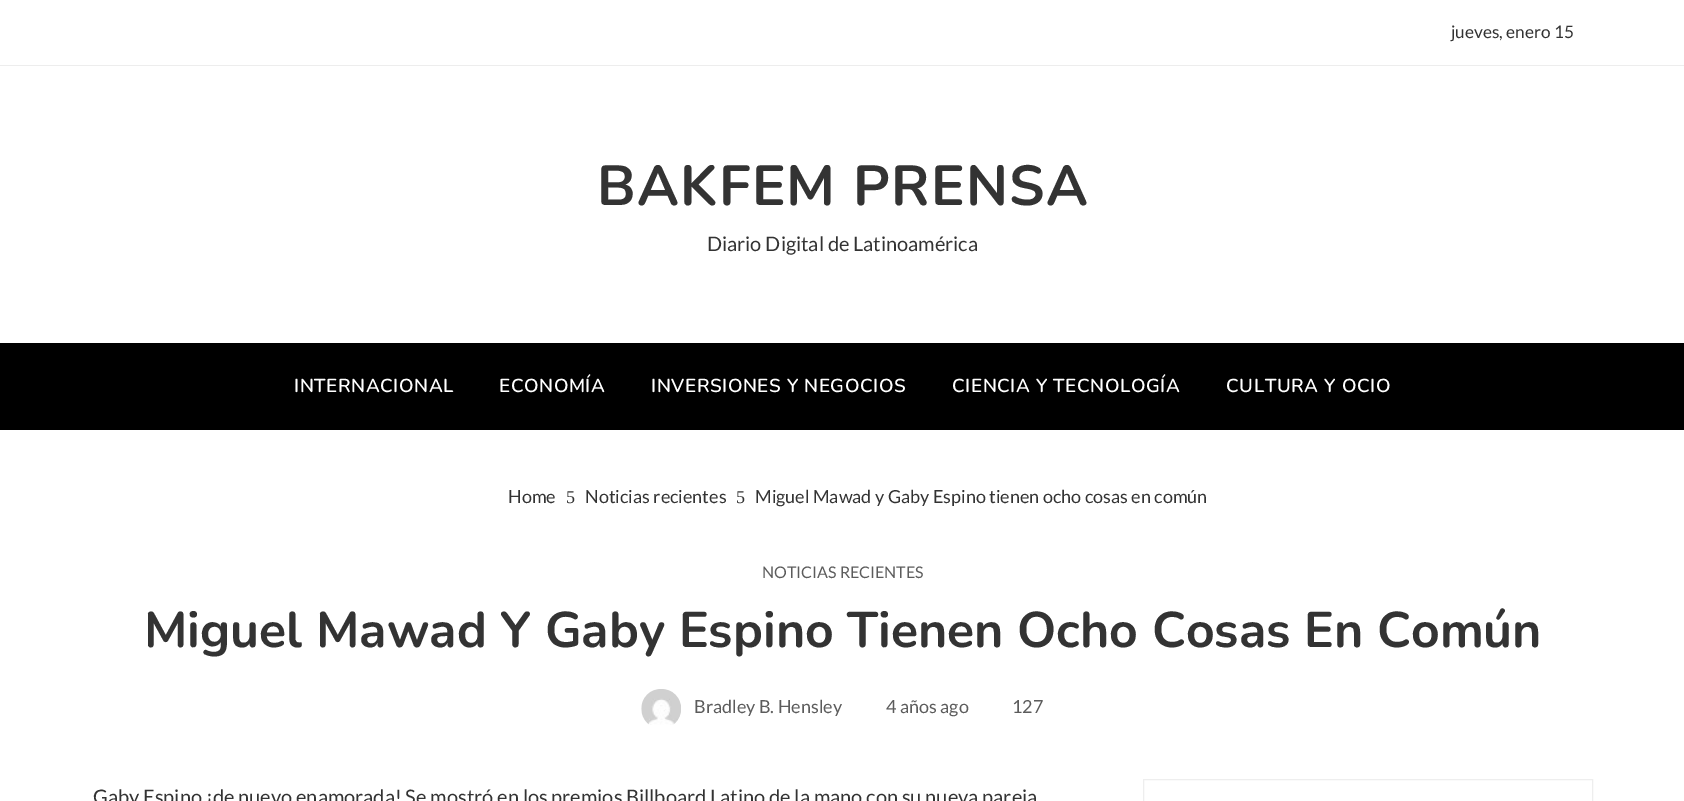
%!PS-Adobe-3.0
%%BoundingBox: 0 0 1684 801
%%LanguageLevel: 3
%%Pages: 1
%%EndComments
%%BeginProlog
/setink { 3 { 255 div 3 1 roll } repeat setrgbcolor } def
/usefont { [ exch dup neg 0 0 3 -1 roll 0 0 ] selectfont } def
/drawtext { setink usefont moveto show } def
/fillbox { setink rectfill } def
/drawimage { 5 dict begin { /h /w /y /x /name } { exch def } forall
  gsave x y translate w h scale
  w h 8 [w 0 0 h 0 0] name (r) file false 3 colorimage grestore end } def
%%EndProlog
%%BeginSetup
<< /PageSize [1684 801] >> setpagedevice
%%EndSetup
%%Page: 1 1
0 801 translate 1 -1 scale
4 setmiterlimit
0 0 1684 801 255 255 255 fillbox
0 65 1684 1 237 237 237 fillbox
(jueves, enero 15) 1451 38 /Lato-Regular 17.25 51 51 51 drawtext
/Nunito-Bold 56.25 usefont
597 205 moveto 1.25 0 (BAKFEM PRENSA) ashow
(Diario Digital de Latinoamérica) 707 251 /Lato-Regular 20 51 51 51 drawtext
0 343 1684 87 0 0 0 fillbox
/Nunito-SemiBold 18.75 usefont
255 255 255 setink
294 392 moveto 0.6 0 (INTERNACIONAL) ashow
499 392 moveto 0.6 0 (ECONOMÍA) ashow
651 392 moveto 0.6 0 (INVERSIONES Y NEGOCIOS) ashow
952 392 moveto 0.6 0 (CIENCIA Y TECNOLOGÍA) ashow
1226 392 moveto 0.6 0 (CULTURA Y OCIO) ashow
(Home) 508 503 /Lato-Regular 18 51 51 51 drawtext
(5) 566 503 /LiberationSerif-Regular 18 51 51 51 drawtext
(Noticias recientes) 585 503 /Lato-Regular 18 51 51 51 drawtext
(5) 736 503 /LiberationSerif-Regular 18 51 51 51 drawtext
(Miguel Mawad y Gaby Espino tienen ocho cosas en común) 755 503 /Lato-Regular 18 51 51 51 drawtext
(NOTICIAS RECIENTES) 762 578 /Lato-Regular 16 92 92 92 drawtext
(Miguel Mawad Y Gaby Espino Tienen Ocho Cosas En Común) 144 647 /Nunito-Bold 50 51 51 51 drawtext
(assets/img1.rgb) 641 689 40 36 drawimage
(Bradley B. Hensley) 694 713 /Lato-Regular 18 92 92 92 drawtext
(4 años ago) 886 713 /Lato-Regular 18 92 92 92 drawtext
(127) 1012 713 /Lato-Regular 18 92 92 92 drawtext
(Gaby Espino ¡de nuevo enamorada! Se mostró en los premios Billboard Latino de la mano con su nueva pareja) 93 804 /Lato-Regular 20 51 51 51 drawtext
238 238 238 setink
1143.5 779.5 449 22 rectstroke
showpage
%%EOF
